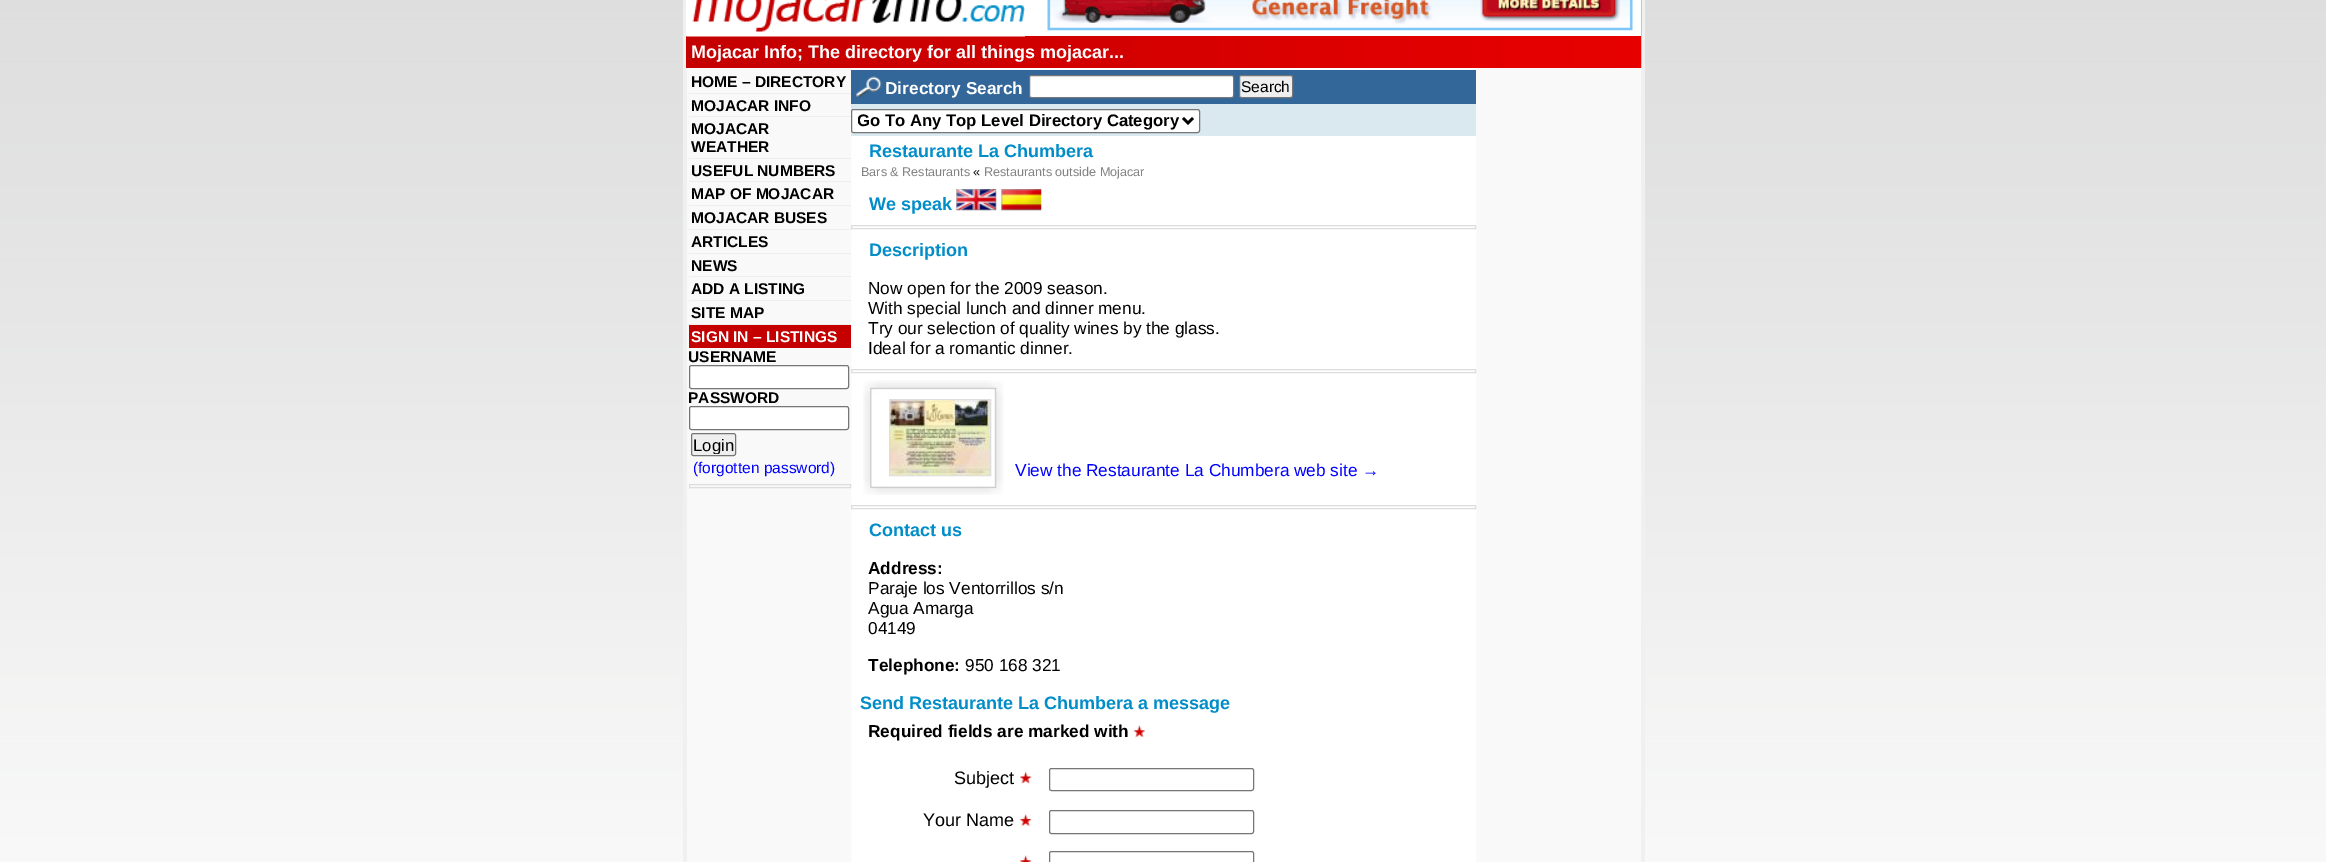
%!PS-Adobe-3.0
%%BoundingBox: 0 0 2326 862
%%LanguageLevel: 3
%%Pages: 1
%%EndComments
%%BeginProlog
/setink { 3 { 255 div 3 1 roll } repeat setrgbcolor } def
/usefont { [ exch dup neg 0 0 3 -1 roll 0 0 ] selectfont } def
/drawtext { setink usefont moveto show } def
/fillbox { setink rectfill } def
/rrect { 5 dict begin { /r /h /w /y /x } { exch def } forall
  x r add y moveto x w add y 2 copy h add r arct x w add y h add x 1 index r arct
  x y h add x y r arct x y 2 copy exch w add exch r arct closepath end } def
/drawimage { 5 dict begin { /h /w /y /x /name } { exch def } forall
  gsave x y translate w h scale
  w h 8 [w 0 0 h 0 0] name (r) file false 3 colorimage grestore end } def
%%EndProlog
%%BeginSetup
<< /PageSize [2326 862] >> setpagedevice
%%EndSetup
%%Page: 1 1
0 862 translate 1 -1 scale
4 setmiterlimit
0 0 2326 862 255 255 255 fillbox
(assets/img1.rgb) 0 0 2326 862 drawimage
(assets/img2.rgb) 687 68 954 794 drawimage
1641 0 4 862 240 240 240 fillbox
683 0 4 862 240 240 240 fillbox
686 36 955 32 212 0 0 fillbox
(assets/img3.rgb) 686 0 956 68 drawimage
686 0 955 36 255 255 255 fillbox
(assets/img4.rgb) 686 0 339 37 drawimage
(assets/img5.rgb) 1047 0 586 31 drawimage
(Mojacar Info; The directory for all things mojacar...) 691 58 /LiberationSans-Bold 18 255 255 255 drawtext
689 93 162 1 238 238 238 fillbox
(HOME – DIRECTORY) 691 87 /LiberationSans-Bold 15.5 0 0 0 drawtext
689 116 162 1 238 238 238 fillbox
(MOJACAR INFO) 691 111 /LiberationSans-Bold 15.5 0 0 0 drawtext
689 158 162 1 238 238 238 fillbox
(MOJACAR) 691 134 /LiberationSans-Bold 15.5 0 0 0 drawtext
(WEATHER) 691 152 /LiberationSans-Bold 15.5 0 0 0 drawtext
689 181 162 1 238 238 238 fillbox
(USEFUL NUMBERS) 691 176 /LiberationSans-Bold 15.5 0 0 0 drawtext
689 205 162 1 238 238 238 fillbox
(MAP OF MOJACAR) 691 199 /LiberationSans-Bold 15.5 0 0 0 drawtext
689 229 162 1 238 238 238 fillbox
(MOJACAR BUSES) 691 223 /LiberationSans-Bold 15.5 0 0 0 drawtext
689 253 162 1 238 238 238 fillbox
(ARTICLES) 691 247 /LiberationSans-Bold 15.5 0 0 0 drawtext
689 276 162 1 238 238 238 fillbox
(NEWS) 691 271 /LiberationSans-Bold 15.5 0 0 0 drawtext
689 300 162 1 238 238 238 fillbox
(ADD A LISTING) 691 294 /LiberationSans-Bold 15.5 0 0 0 drawtext
689 324 162 1 238 238 238 fillbox
(SITE MAP) 691 318 /LiberationSans-Bold 15.5 0 0 0 drawtext
689 325 162 23 196 0 0 fillbox
(SIGN IN – LISTINGS) 691 342 /LiberationSans-Bold 15.5 255 255 255 drawtext
(USERNAME) 688 362 /LiberationSans-Bold 15.5 0 0 0 drawtext
255 255 255 setink
689.5 365.5 159 23 2 rrect gsave fill grestore
118 118 118 setink
stroke
(PASSWORD) 688 403 /LiberationSans-Bold 15.5 0 0 0 drawtext
255 255 255 setink
689.5 406.5 159 23 2 rrect gsave fill grestore
118 118 118 setink
stroke
239 239 239 setink
691.5 433.5 44 22 2 rrect gsave fill grestore
118 118 118 setink
stroke
gsave
694 435 40 19 rectclip
(Login) 693 451 /LiberationSans-Regular 16.7 0 0 0 drawtext
grestore
(\(forgotten password\)) 693 473 /LiberationSans-Regular 15.5 0 0 255 drawtext
221 221 221 setink
689.5 484.5 161 3 rectstroke
851 70 625 34 51 102 153 fillbox
(assets/img6.rgb) 856 76 26 22 drawimage
(Directory Search) 885 94 /LiberationSans-Bold 17.25 255 255 255 drawtext
1029.5 75.5 204 22 2 rrect gsave fill grestore
118 118 118 setink
stroke
239 239 239 setink
1239.5 75.5 53 22 2 rrect gsave fill grestore
118 118 118 setink
stroke
(Search) 1241 92 /LiberationSans-Regular 15.5 0 0 0 drawtext
851 104 625 32 218 233 239 fillbox
255 255 255 setink
851.5 109.5 348 23 2 rrect gsave fill grestore
118 118 118 setink
stroke
0 0 0 setink
2.5 setlinewidth
1183 118 moveto 1188 123 lineto 1193 118 lineto stroke
gsave
858 110 321 21 rectclip
(Go To Any Top Level Directory Category) 857 126 /LiberationSans-Bold 16.7 0 0 0 drawtext
grestore
(Restaurante La Chumbera) 869 157 /LiberationSans-Bold 18 0 141 200 drawtext
(Bars & Restaurants) 861 176 /LiberationSans-Regular 12.6 131 131 131 drawtext
(«) 973 176 /LiberationSans-Regular 12.6 0 0 0 drawtext
(Restaurants outside Mojacar) 984 176 /LiberationSans-Regular 12.6 131 131 131 drawtext
(We speak) 869 210 /LiberationSans-Bold 18 0 141 200 drawtext
(assets/img7.rgb) 956 189 41 22 drawimage
(assets/img8.rgb) 1001 189 41 22 drawimage
221 221 221 setink
1 setlinewidth
851.5 225.5 624 3 rectstroke
(Description) 869 256 /LiberationSans-Bold 18 0 141 200 drawtext
(Now open for the 2009 season.) 868 294 /LiberationSans-Regular 17.25 0 0 0 drawtext
(With special lunch and dinner menu.) 868 314 /LiberationSans-Regular 17.25 0 0 0 drawtext
(Try our selection of quality wines by the glass.) 868 334 /LiberationSans-Regular 17.25 0 0 0 drawtext
(Ideal for a romantic dinner.) 868 354 /LiberationSans-Regular 17.25 0 0 0 drawtext
221 221 221 setink
851.5 369.5 624 3 rectstroke
(assets/img9.rgb) 863 380 141 115 drawimage
889.5 399.5 101 76 rectstroke
(assets/img10.rgb) 890 400 100 76 drawimage
(View the Restaurante La Chumbera web site →) 1015 476 /LiberationSans-Regular 17.25 0 0 255 drawtext
221 221 221 setink
851.5 505.5 624 3 rectstroke
(Contact us) 869 536 /LiberationSans-Bold 18 0 141 200 drawtext
(Address:) 868 574 /LiberationSans-Bold 17.25 0 0 0 drawtext
(Paraje los Ventorrillos s/n) 868 594 /LiberationSans-Regular 17.25 0 0 0 drawtext
(Agua Amarga) 868 614 /LiberationSans-Regular 17.25 0 0 0 drawtext
(04149) 868 634 /LiberationSans-Regular 17.25 0 0 0 drawtext
(Telephone:) 868 671 /LiberationSans-Bold 17.25 0 0 0 drawtext
(950 168 321) 965 671 /LiberationSans-Regular 17.25 0 0 0 drawtext
(Send Restaurante La Chumbera a message) 860 709 /LiberationSans-Bold 18 0 141 200 drawtext
(Required fields are marked with) 868 737 /LiberationSans-Bold 17.25 0 0 0 drawtext
(assets/img11.rgb) 1133 725 12 13 drawimage
(Subject) 954 784 /LiberationSans-Regular 18 0 0 0 drawtext
(assets/img12.rgb) 1020 771 12 13 drawimage
118 118 118 setink
1049.5 768.5 204 22 2 rrect stroke
(Your Name) 923 826 /LiberationSans-Regular 18 0 0 0 drawtext
(assets/img13.rgb) 1020 814 12 13 drawimage
118 118 118 setink
1049.5 810.5 204 23 2 rrect stroke
(assets/img14.rgb) 1020 855 12 7 drawimage
1049.5 851.5 204 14 2 rrect stroke
showpage
%%EOF
